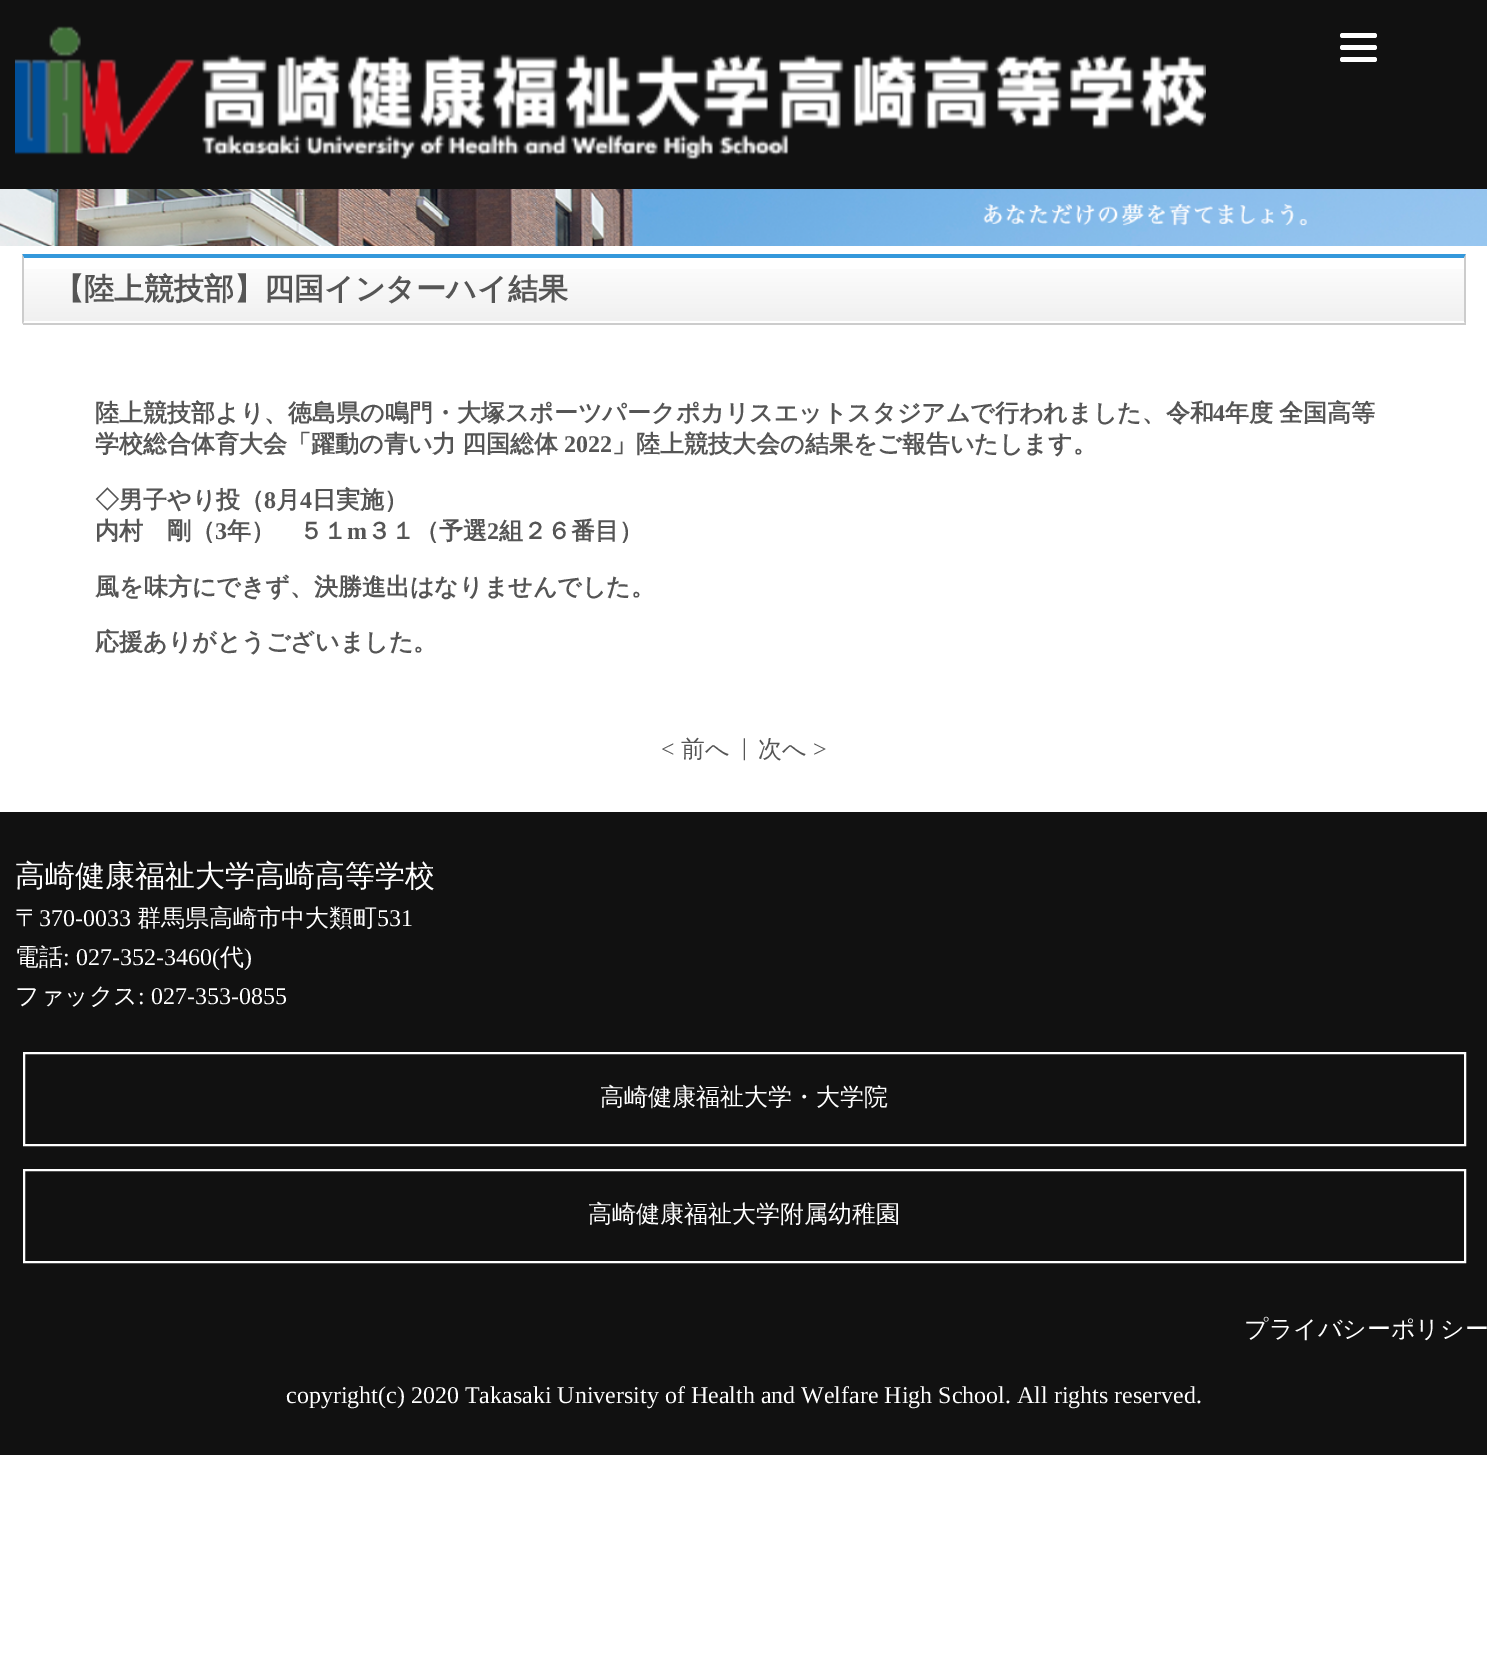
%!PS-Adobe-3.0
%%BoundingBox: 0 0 1487 1664
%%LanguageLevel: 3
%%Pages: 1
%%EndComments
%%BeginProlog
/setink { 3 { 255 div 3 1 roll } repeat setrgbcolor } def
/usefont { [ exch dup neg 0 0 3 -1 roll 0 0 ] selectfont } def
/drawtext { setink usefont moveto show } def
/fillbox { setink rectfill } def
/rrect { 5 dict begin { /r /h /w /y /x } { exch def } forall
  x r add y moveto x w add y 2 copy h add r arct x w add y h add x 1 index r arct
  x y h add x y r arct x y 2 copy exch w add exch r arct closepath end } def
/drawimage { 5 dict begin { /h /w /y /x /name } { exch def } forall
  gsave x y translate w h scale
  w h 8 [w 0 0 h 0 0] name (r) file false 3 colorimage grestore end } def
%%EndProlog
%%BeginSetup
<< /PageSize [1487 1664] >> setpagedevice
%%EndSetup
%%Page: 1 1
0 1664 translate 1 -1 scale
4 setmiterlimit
0 0 1487 1664 255 255 255 fillbox
0 0 1487 189 17 17 17 fillbox
(assets/img1.rgb) 15 26 1191 134 drawimage
255 255 255 setink
1340 33 37 5 2.5 rrect fill
1340 45 37 5 2.5 rrect fill
1340 57 37 5 2.5 rrect fill
(assets/img2.rgb) 0 189 1487 57 drawimage
gsave 24 269 moveto 1464 269 lineto 1464 321 lineto 24 321 lineto closepath clip newpath
<< /ShadingType 2 /ColorSpace /DeviceRGB /Coords [744 258 744 323] /Extend [true true] /Function << /FunctionType 2 /Domain [0 1] /C0 [1 1 1] /C1 [0.941 0.941 0.941] /N 1 >> >> shfill grestore
52 152 219 setink
22 254 moveto 1466 254 lineto 1464 258 lineto 24 258 lineto closepath fill
204 204 204 setink
1466 254 moveto 1466 324 lineto 1464 322 lineto 1464 258 lineto closepath fill
23 323 1443 2 204 204 204 fillbox
22 324 moveto 22 254 lineto 24 258 lineto 24 322 lineto closepath fill
(【陸上競技部】四国インターハイ結果) 54 299 /WenQuanYiZenHei-Bold 30 85 85 85 drawtext
(陸上競技部より、徳島県の鳴門・大塚スポーツパークポカリスエットスタジアムで行われました、令和) 95 421 /WenQuanYiZenHei-Bold 24 85 85 85 drawtext
(4) 1213 421 /LiberationSerif-Bold 24 85 85 85 drawtext
/WenQuanYiZenHei-Bold 24 usefont
1225 421 moveto -1 0 32 (年度 全国高等) widthshow
95 452 moveto -1 0 32 (学校総合体育大会「躍動の青い力 四国総体) widthshow
(2022) 564 452 /LiberationSerif-Bold 24 85 85 85 drawtext
(」陸上競技大会の結果をご報告いたします。) 612 452 /WenQuanYiZenHei-Bold 24 85 85 85 drawtext
(◇男子やり投（) 95 508 /WenQuanYiZenHei-Bold 24 85 85 85 drawtext
(8) 264 508 /LiberationSerif-Bold 24 85 85 85 drawtext
(月) 276 508 /WenQuanYiZenHei-Bold 24 85 85 85 drawtext
(4) 300 508 /LiberationSerif-Bold 24 85 85 85 drawtext
(日実施）) 312 508 /WenQuanYiZenHei-Bold 24 85 85 85 drawtext
(内村　剛（) 95 539 /WenQuanYiZenHei-Bold 24 85 85 85 drawtext
(3) 215 539 /LiberationSerif-Bold 24 85 85 85 drawtext
(年）　５１) 227 539 /WenQuanYiZenHei-Bold 24 85 85 85 drawtext
(m) 347 539 /LiberationSerif-Bold 24 85 85 85 drawtext
(３１（予選) 367 539 /WenQuanYiZenHei-Bold 24 85 85 85 drawtext
(2) 487 539 /LiberationSerif-Bold 24 85 85 85 drawtext
(組２６番目）) 499 539 /WenQuanYiZenHei-Bold 24 85 85 85 drawtext
(風を味方にできず、決勝進出はなりませんでした。) 95 595 /WenQuanYiZenHei-Bold 24 85 85 85 drawtext
(応援ありがとうございました。) 95 650 /WenQuanYiZenHei-Bold 24 85 85 85 drawtext
(<) 661 757 /LiberationSerif-Regular 24 85 85 85 drawtext
(前へ) 681 757 /WenQuanYiZenHei-Medium 24 85 85 85 drawtext
(|) 742 755 /LiberationSerif-Regular 24 85 85 85 drawtext
(次へ) 758 757 /WenQuanYiZenHei-Medium 24 85 85 85 drawtext
(>) 813 757 /LiberationSerif-Regular 24 85 85 85 drawtext
0 812 1487 643 17 17 17 fillbox
(高崎健康福祉大学高崎高等学校) 15 886 /WenQuanYiZenHei-Medium 30 255 255 255 drawtext
(〒) 15 926 /WenQuanYiZenHei-Medium 24 255 255 255 drawtext
(370-0033) 39 926 /LiberationSerif-Regular 24 255 255 255 drawtext
(群馬県高崎市中大類町) 137 926 /WenQuanYiZenHei-Medium 24 255 255 255 drawtext
(531) 377 926 /LiberationSerif-Regular 24 255 255 255 drawtext
(電話) 15 965 /WenQuanYiZenHei-Medium 24 255 255 255 drawtext
(: 027-352-3460\() 63 965 /LiberationSerif-Regular 24 255 255 255 drawtext
(代) 220 965 /WenQuanYiZenHei-Medium 24 255 255 255 drawtext
(\)) 244 965 /LiberationSerif-Regular 24 255 255 255 drawtext
(ファックス) 15 1004 /WenQuanYiZenHei-Medium 24 255 255 255 drawtext
(: 027-353-0855) 138 1004 /LiberationSerif-Regular 24 255 255 255 drawtext
2 setlinewidth
24 1053 1441 92 rectstroke
(高崎健康福祉大学・大学院) 600 1105 /WenQuanYiZenHei-Medium 24 255 255 255 drawtext
24 1170 1441 92 rectstroke
(高崎健康福祉大学附属幼稚園) 588 1222 /WenQuanYiZenHei-Medium 24 255 255 255 drawtext
(プライバシーポリシー) 1244 1337 /WenQuanYiZenHei-Medium 24 255 255 255 drawtext
(copyright\(c\) 2020 Takasaki University of Health and Welfare High School. All rights reserved.) 286 1403 /LiberationSerif-Regular 24 255 255 255 drawtext
showpage
%%EOF
